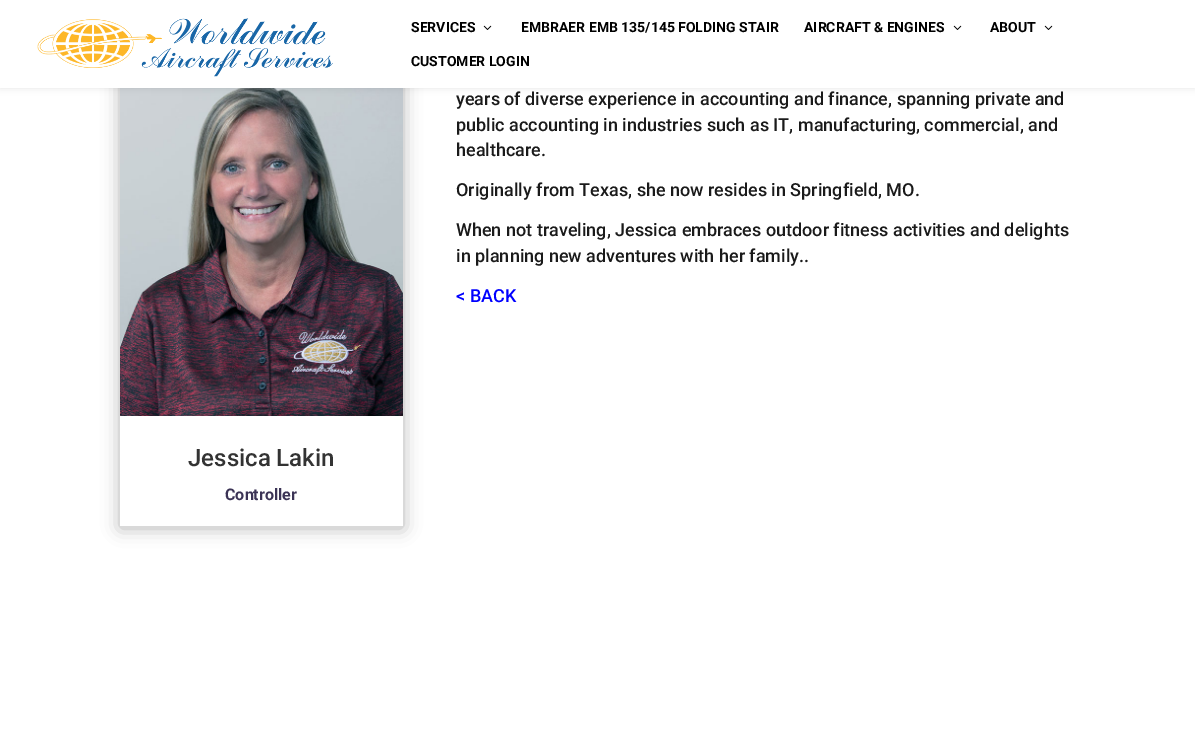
%!PS-Adobe-3.0
%%BoundingBox: 0 0 1195 734
%%LanguageLevel: 3
%%Pages: 1
%%EndComments
%%BeginProlog
/setink { 3 { 255 div 3 1 roll } repeat setrgbcolor } def
/usefont { [ exch dup neg 0 0 3 -1 roll 0 0 ] selectfont } def
/drawtext { setink usefont moveto show } def
/fillbox { setink rectfill } def
/setalpha { dup .setfillconstantalpha .setstrokeconstantalpha } def
/rrect { 5 dict begin { /r /h /w /y /x } { exch def } forall
  x r add y moveto x w add y 2 copy h add r arct x w add y h add x 1 index r arct
  x y h add x y r arct x y 2 copy exch w add exch r arct closepath end } def
/softshadow { 12 dict begin { /a /b /q /h /w /y /x } { exch def } forall gsave /was 0 def
  9 -2 -9 { dup b mul 4 div /e exch def 1 sub .425 mul 2.718 exch exp 1 add a .99 .min exch div /now exch def
    1 1 now sub 1 was sub div sub setalpha /was now def
    w h .min e 2 mul add 0 gt { x e sub y e sub w e 2 mul add h e 2 mul add
      q e add b .6 mul add w h .min 2 div e add .min 0 .max rrect fill } if } for grestore end } def
/drawimage { 5 dict begin { /h /w /y /x /name } { exch def } forall
  gsave x y translate w h scale
  w h 8 [w 0 0 h 0 0] name (r) file false 3 colorimage grestore end } def
%%EndProlog
%%BeginSetup
<< /PageSize [1195 734] /PageUsesTransparency true >> setpagedevice
%%EndSetup
%%Page: 1 1
0 .pushpdf14devicefilter
0 734 translate 1 -1 scale
4 setmiterlimit
0 0 1195 734 255 255 255 fillbox
gsave
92 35 moveto 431 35 lineto 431 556 lineto 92 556 lineto closepath 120 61 moveto 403 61 lineto 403 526 lineto 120 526 lineto closepath eoclip newpath
0 0 0 setink
120 63 283 465 0 9 0.3 softshadow
grestore
(assets/img3.rgb) 120 88 283 328 drawimage
0 0 0 setink
0 0 1195 88 0 3.5 0.1 softshadow
0 0 1195 88 255 255 255 fillbox
(assets/img1.rgb) 37 18 296 59 drawimage
(SERVICES) 411 32 /Roboto-Bold 14 0 0 0 drawtext
(assets/img2.rgb) 483 25 9 5 drawimage
(EMBRAER EMB 135/145 FOLDING STAIR) 521 32 /Roboto-Bold 14 0 0 0 drawtext
(AIRCRAFT & ENGINES) 804 32 /Roboto-Bold 14 0 0 0 drawtext
(assets/img2.rgb) 953 25 9 5 drawimage
(ABOUT) 990 32 /Roboto-Bold 14 0 0 0 drawtext
(assets/img2.rgb) 1044 25 9 5 drawimage
(CUSTOMER LOGIN) 411 66 /Roboto-Bold 14 0 0 0 drawtext
(years of diverse experience in accounting and finance, spanning private and) 456 105 /Roboto-Medium 18 26 26 26 drawtext
(public accounting in industries such as IT, manufacturing, commercial, and) 456 131 /Roboto-Medium 18 26 26 26 drawtext
(healthcare.) 456 156 /Roboto-Medium 18 26 26 26 drawtext
(Originally from Texas, she now resides in Springfield, MO.) 456 196 /Roboto-Medium 18 26 26 26 drawtext
(When not traveling, Jessica embraces outdoor fitness activities and delights) 456 236 /Roboto-Medium 18 26 26 26 drawtext
(in planning new adventures with her family..) 456 262 /Roboto-Medium 18 26 26 26 drawtext
(< BACK) 456 302 /Roboto-Medium 18 0 0 255 drawtext
(Jessica Lakin) 188 466 /Roboto-Medium 24 51 51 51 drawtext
(Controller) 225 500 /Roboto-Bold 16 59 51 85 drawtext
.poppdf14devicefilter showpage
%%EOF
